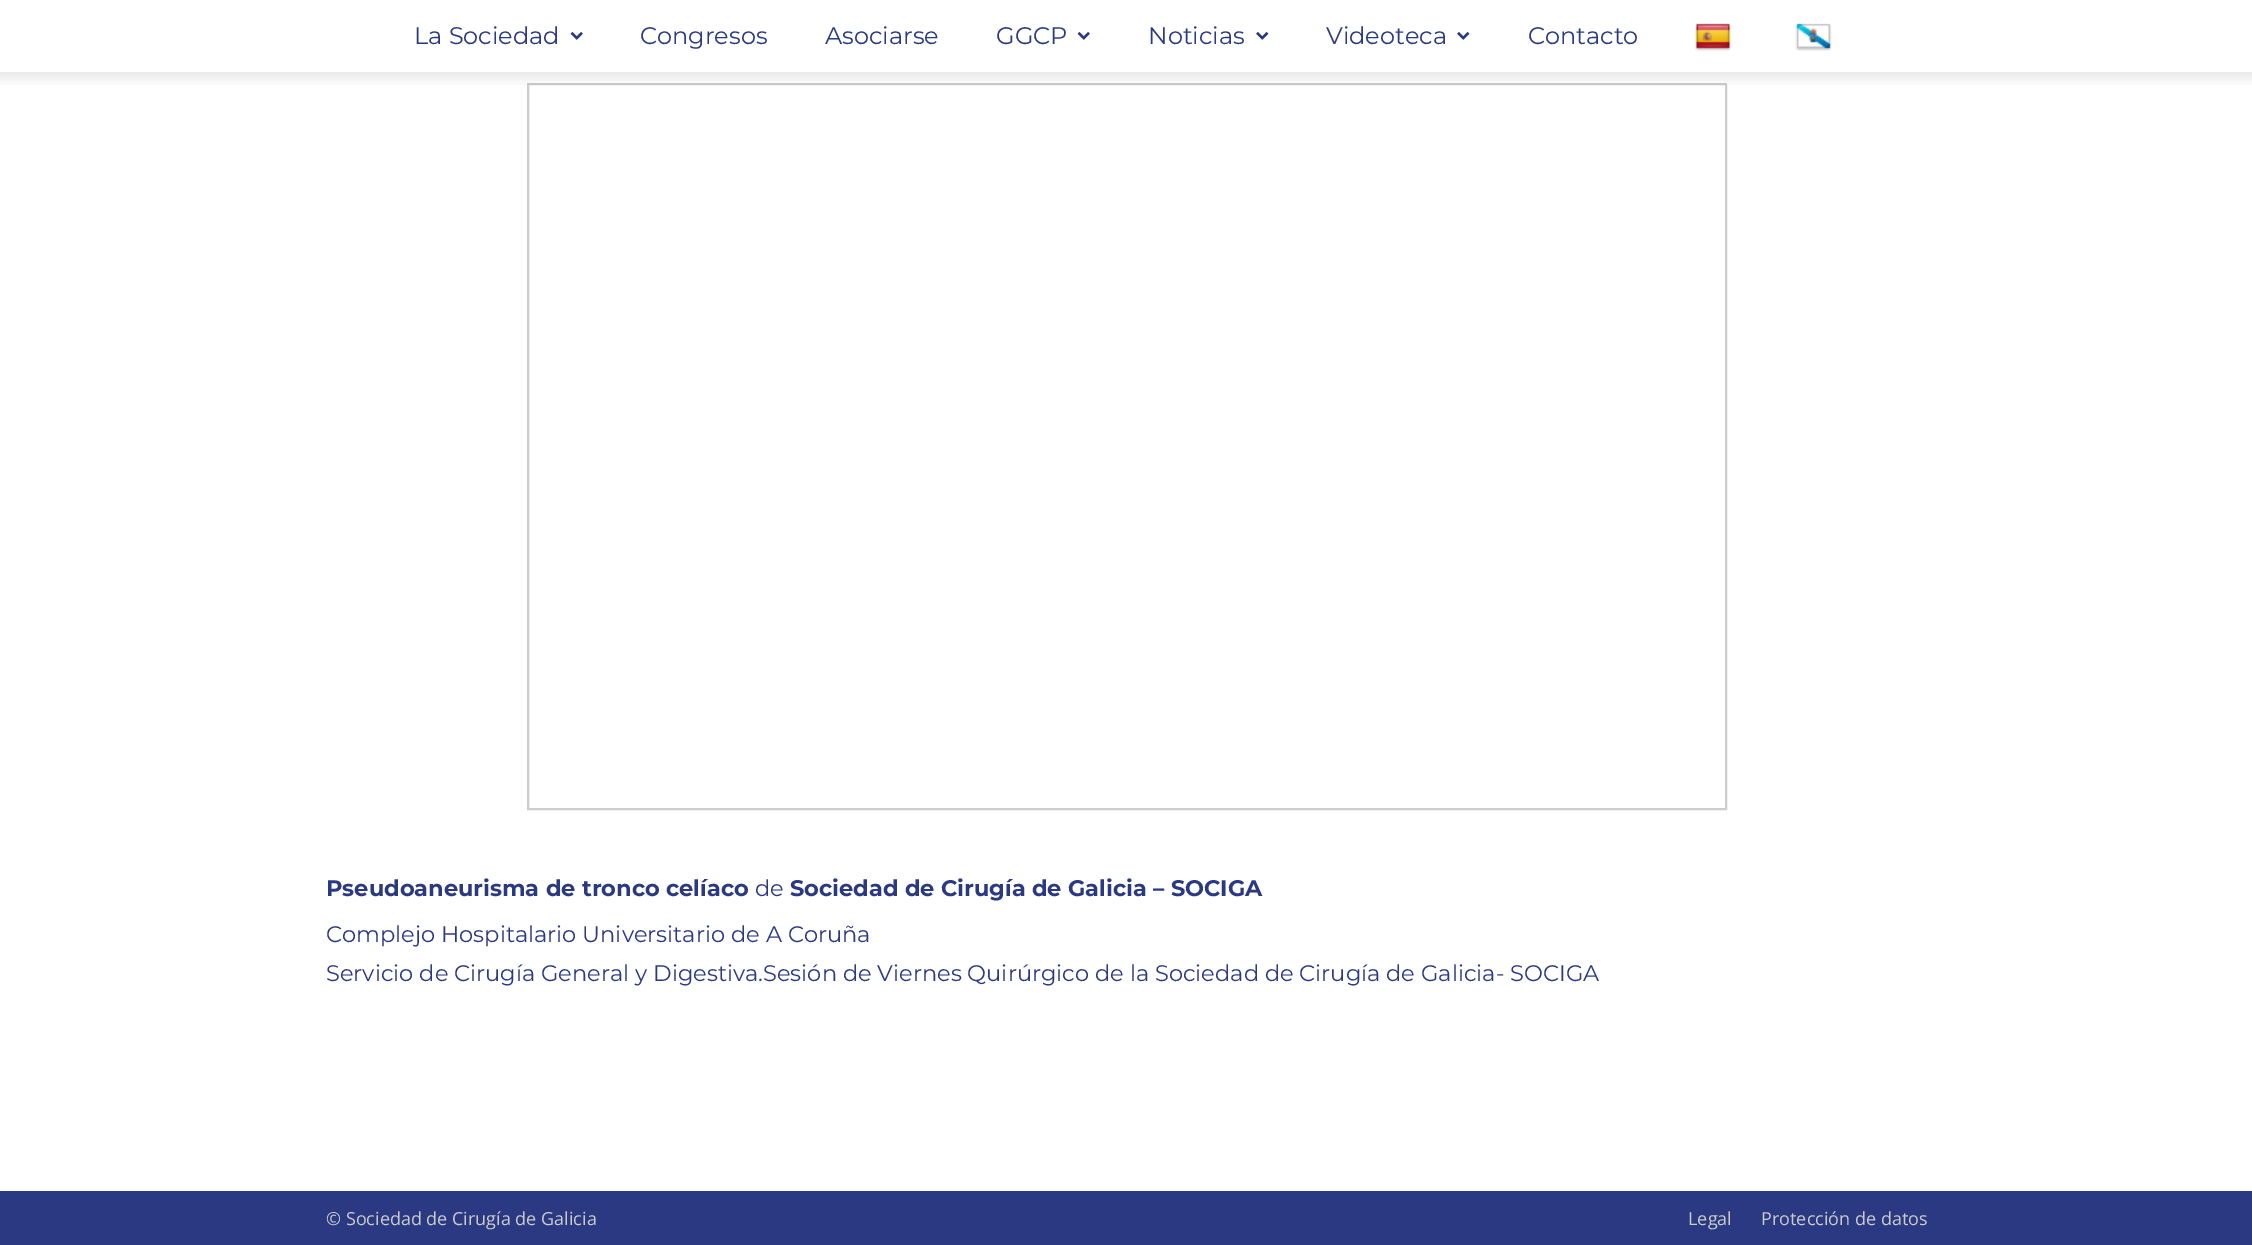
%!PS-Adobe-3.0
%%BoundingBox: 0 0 2252 1245
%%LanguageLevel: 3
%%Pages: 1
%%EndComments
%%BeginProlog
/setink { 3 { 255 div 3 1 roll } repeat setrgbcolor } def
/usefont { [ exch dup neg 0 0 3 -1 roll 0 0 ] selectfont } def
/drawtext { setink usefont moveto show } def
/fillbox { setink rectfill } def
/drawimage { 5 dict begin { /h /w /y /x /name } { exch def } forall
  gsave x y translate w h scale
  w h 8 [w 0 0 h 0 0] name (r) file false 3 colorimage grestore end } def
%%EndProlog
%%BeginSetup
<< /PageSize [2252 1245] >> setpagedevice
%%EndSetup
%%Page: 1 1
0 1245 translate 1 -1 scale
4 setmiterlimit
0 0 2252 1245 255 255 255 fillbox
(La Sociedad) 414 44 /Montserrat-Regular 24 43 57 130 drawtext
(assets/img1.rgb) 570 32 13 8 drawimage
(Congresos) 640 44 /Montserrat-Regular 24 43 57 130 drawtext
(Asociarse) 825 44 /Montserrat-Regular 24 43 57 130 drawtext
(GGCP) 996 44 /Montserrat-Regular 24 43 57 130 drawtext
(assets/img1.rgb) 1077 32 13 8 drawimage
(Noticias) 1148 44 /Montserrat-Regular 24 43 57 130 drawtext
(assets/img2.rgb) 1256 32 13 8 drawimage
(Videoteca) 1326 44 /Montserrat-Regular 24 43 57 130 drawtext
(assets/img2.rgb) 1457 32 13 8 drawimage
(Contacto) 1528 44 /Montserrat-Regular 24 43 57 130 drawtext
(assets/img3.rgb) 1695 23 36 28 drawimage
(assets/img4.rgb) 1795 23 37 28 drawimage
204 204 204 setink
2 setlinewidth
528 84 1198 725 rectstroke
(assets/img5.rgb) 0 72 2252 13 drawimage
(Pseudoaneurisma de tronco celíaco) 326 896 /Montserrat-Bold 22.5 43 57 130 drawtext
(de) 755 896 /Montserrat-Regular 22.5 43 57 130 drawtext
(Sociedad de Cirugía de Galicia – SOCIGA) 790 896 /Montserrat-Bold 22.5 43 57 130 drawtext
(Complejo Hospitalario Universitario de A Coruña) 326 942 /Montserrat-Regular 22.5 43 57 130 drawtext
(Servicio de Cirugía General y Digestiva.Sesión de Viernes Quirúrgico de la Sociedad de Cirugía de Galicia- SOCIGA) 326 981 /Montserrat-Regular 22.5 43 57 130 drawtext
0 1191 2252 54 43 57 130 fillbox
(© Sociedad de Cirugía de Galicia) 326 1225 /OpenSans-Regular 18 204 204 204 drawtext
(Legal) 1688 1225 /OpenSans-Regular 18 204 204 204 drawtext
(Protección de datos) 1761 1225 /OpenSans-Regular 18 204 204 204 drawtext
showpage
%%EOF
